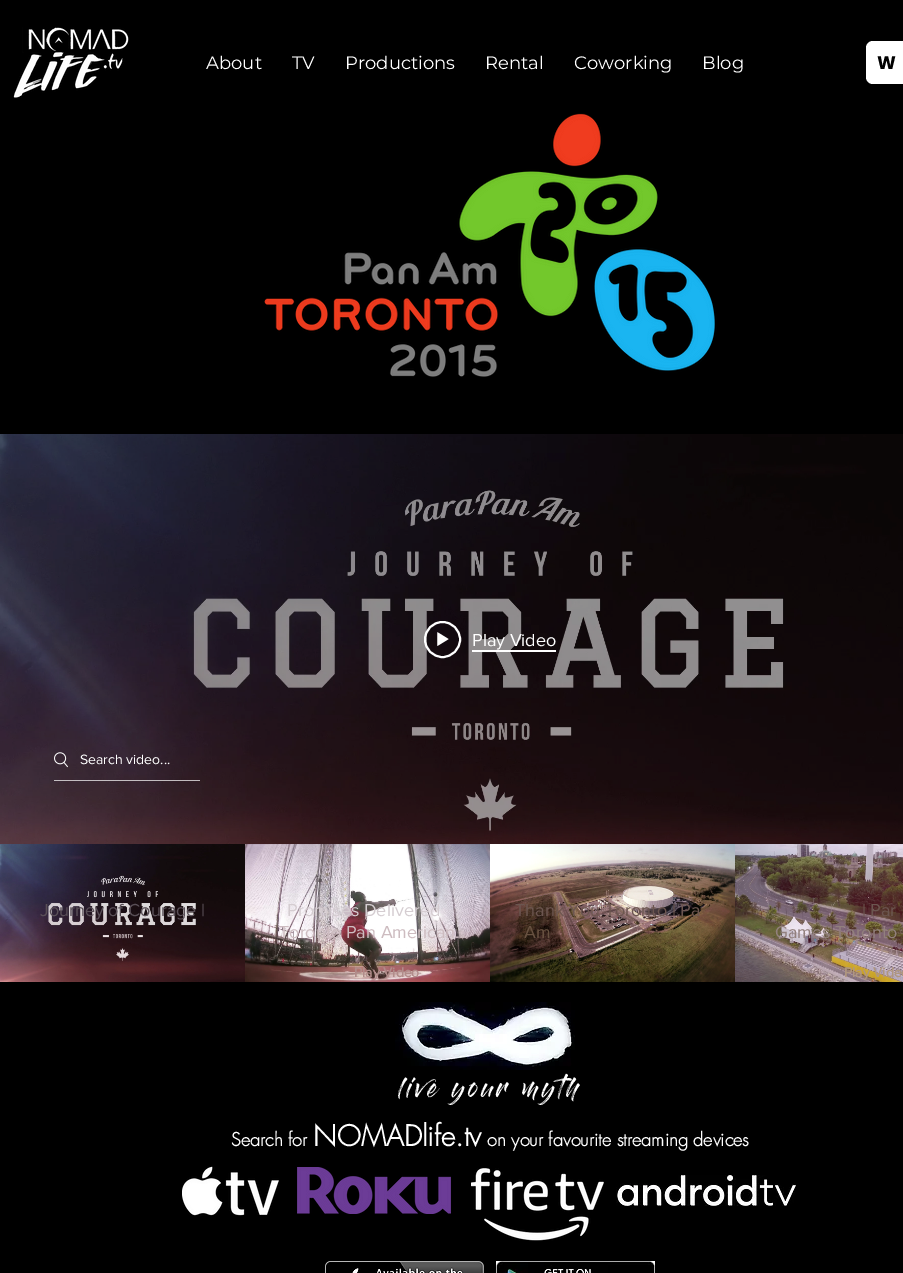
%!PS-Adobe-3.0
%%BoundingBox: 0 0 903 1273
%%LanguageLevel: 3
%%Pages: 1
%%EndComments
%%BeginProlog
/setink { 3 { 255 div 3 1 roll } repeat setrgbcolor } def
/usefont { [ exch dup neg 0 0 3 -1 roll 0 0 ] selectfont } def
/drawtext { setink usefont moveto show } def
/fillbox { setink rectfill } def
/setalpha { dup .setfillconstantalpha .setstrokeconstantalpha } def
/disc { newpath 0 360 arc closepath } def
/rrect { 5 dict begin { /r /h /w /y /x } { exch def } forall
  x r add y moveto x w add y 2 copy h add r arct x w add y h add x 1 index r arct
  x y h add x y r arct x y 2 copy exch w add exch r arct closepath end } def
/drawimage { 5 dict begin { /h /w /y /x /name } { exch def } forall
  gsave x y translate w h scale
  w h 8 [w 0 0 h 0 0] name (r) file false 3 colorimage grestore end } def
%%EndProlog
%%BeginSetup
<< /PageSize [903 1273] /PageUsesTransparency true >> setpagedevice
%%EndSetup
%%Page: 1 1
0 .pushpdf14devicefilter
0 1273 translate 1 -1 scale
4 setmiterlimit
0 0 903 1273 0 0 0 fillbox
(assets/img1.rgb) 13 27 116 71 drawimage
(About) 206 69 /Montserrat-Regular 18 255 255 255 drawtext
(TV) 292 69 /Montserrat-Regular 18 255 255 255 drawtext
(Productions) 345 69 /Montserrat-Regular 18 255 255 255 drawtext
(Rental) 485 69 /Montserrat-Regular 18 255 255 255 drawtext
(Coworking) 574 69 /Montserrat-Regular 18 255 255 255 drawtext
(Blog) 702 69 /Montserrat-Regular 18 255 255 255 drawtext
866 41 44 43 7 rrect fill
/Poppins-Bold 18 usefont
0 0 0 setink
877 69 moveto 1 0 (W) ashow
(assets/img2.rgb) 264 113 453 264 drawimage
(assets/img3.rgb) 0 434 903 410 drawimage
(assets/img4.rgb) 194 490 589 341 drawimage
255 255 255 setink
2 setlinewidth
442.5 639.5 17.5 disc stroke
(assets/img5.rgb) 437 632 12 14 drawimage
472 650 84 2 255 255 255 fillbox
(Play Video) 472 646 /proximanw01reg-Regular 18 255 255 255 drawtext
(assets/img6.rgb) 54 752 14 16 drawimage
0.7 setalpha
54 780 146 1 255 255 255 fillbox
1 setalpha
(Search video...) 80 764 /proximanw01reg-Regular 14 255 255 255 drawtext
(assets/img7.rgb) 0 844 245 138 drawimage
(assets/img8.rgb) 48 875 148 86 drawimage
(Journey of Courage |) 40 916 /proximanw01reg-Regular 18 89 79 87 drawtext
(assets/img9.rgb) 245 981 245 1 drawimage
(assets/img10.rgb) 245 844 245 137 drawimage
(Promises Delivered) 287 916 /proximanw01reg-Regular 18 213 205 209 drawtext
(Toronto Pan American…) 279 938 /proximanw01reg-Regular 18 205 188 192 drawtext
(Play Video) 354 977 /proximanw01reg-Bold 14 177 140 138 drawtext
(assets/img11.rgb) 490 844 245 138 drawimage
(assets/img12.rgb) 492 861 240 117 drawimage
(Thank You Toronto | Pa) 515 916 /proximanw01reg-Regular 18 108 86 80 drawtext
(Am) 524 938 /proximanw01reg-Regular 18 103 81 64 drawtext
(assets/img13.rgb) 735 844 168 138 drawimage
(| Par) 862 916 /proximanw01reg-Regular 18 108 86 80 drawtext
(Games Toronto) 775 938 /proximanw01reg-Regular 18 146 128 125 drawtext
(Play Video) 844 977 /proximanw01reg-Bold 14 175 150 127 drawtext
(assets/img14.rgb) 395 1002 180 68 drawimage
/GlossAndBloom-Regular 20 usefont
255 255 255 setink
398 1097 moveto 3 0 (live your myth) ashow
(Search for) 231 1146 /futura-Bold 18 255 255 255 drawtext
(NOMADlife.tv) 313 1146 /futura-Bold 28 255 255 255 drawtext
(on your favourite streaming devices) 487 1146 /futura-Bold 18 255 255 255 drawtext
(assets/img15.rgb) 182 1166 97 50 drawimage
(assets/img16.rgb) 297 1167 154 47 drawimage
(assets/img17.rgb) 471 1168 133 73 drawimage
(assets/img18.rgb) 616 1175 180 31 drawimage
(assets/img19.rgb) 325 1261 159 12 drawimage
(assets/img20.rgb) 496 1261 159 12 drawimage
.poppdf14devicefilter showpage
%%EOF
